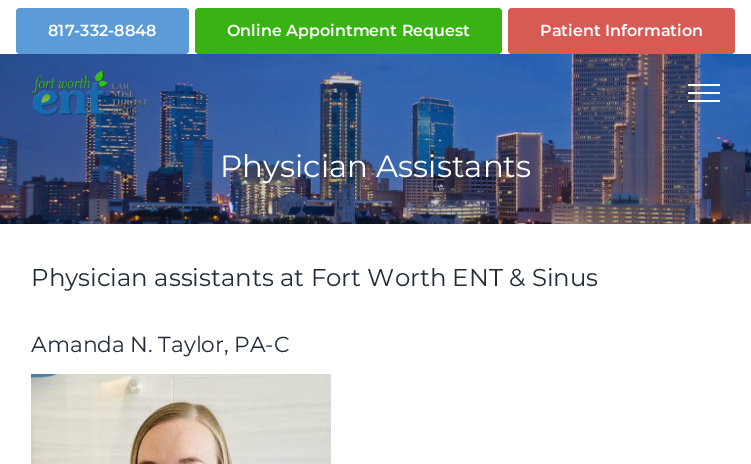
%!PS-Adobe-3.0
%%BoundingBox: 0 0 751 464
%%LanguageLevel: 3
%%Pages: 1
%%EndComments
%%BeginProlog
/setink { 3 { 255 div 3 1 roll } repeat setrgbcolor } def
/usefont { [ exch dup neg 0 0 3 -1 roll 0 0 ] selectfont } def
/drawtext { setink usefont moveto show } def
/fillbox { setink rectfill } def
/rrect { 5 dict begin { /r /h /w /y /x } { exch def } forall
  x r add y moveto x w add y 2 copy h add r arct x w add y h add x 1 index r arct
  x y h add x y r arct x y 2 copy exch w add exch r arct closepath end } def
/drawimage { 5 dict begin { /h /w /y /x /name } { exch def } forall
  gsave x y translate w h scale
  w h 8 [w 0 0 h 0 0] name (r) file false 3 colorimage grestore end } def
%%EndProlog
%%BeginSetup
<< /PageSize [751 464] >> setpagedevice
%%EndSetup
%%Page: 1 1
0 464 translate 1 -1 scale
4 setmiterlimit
0 0 751 464 255 255 255 fillbox
90 155 216 setink
16 8 173 46 4 rrect fill
(817-332-8848) 48 36 /Montserrat-SemiBold 16 255 255 255 drawtext
57 179 19 setink
195 8 307 46 4 rrect fill
(Online Appointment Request) 227 36 /Montserrat-SemiBold 16 255 255 255 drawtext
214 91 84 setink
508 8 227 46 4 rrect fill
(Patient Information) 540 36 /Montserrat-SemiBold 16 255 255 255 drawtext
(assets/img2.rgb) 0 54 751 170 drawimage
(assets/img1.rgb) 31 70 118 46 drawimage
688 92 32 2 1 rrect fill
688 84 32 2 1 rrect fill
688 100 32 2 1 rrect fill
(Physician Assistants) 220 177 /Montserrat-Regular 30.9 255 255 255 drawtext
(Physician assistants at Fort Worth ENT & Sinus) 31 286 /Montserrat-Regular 24.4 35 44 57 drawtext
(Amanda N. Taylor, PA-C) 31 352 /Montserrat-Regular 21.75 35 44 57 drawtext
(assets/img3.rgb) 31 374 300 90 drawimage
showpage
%%EOF
